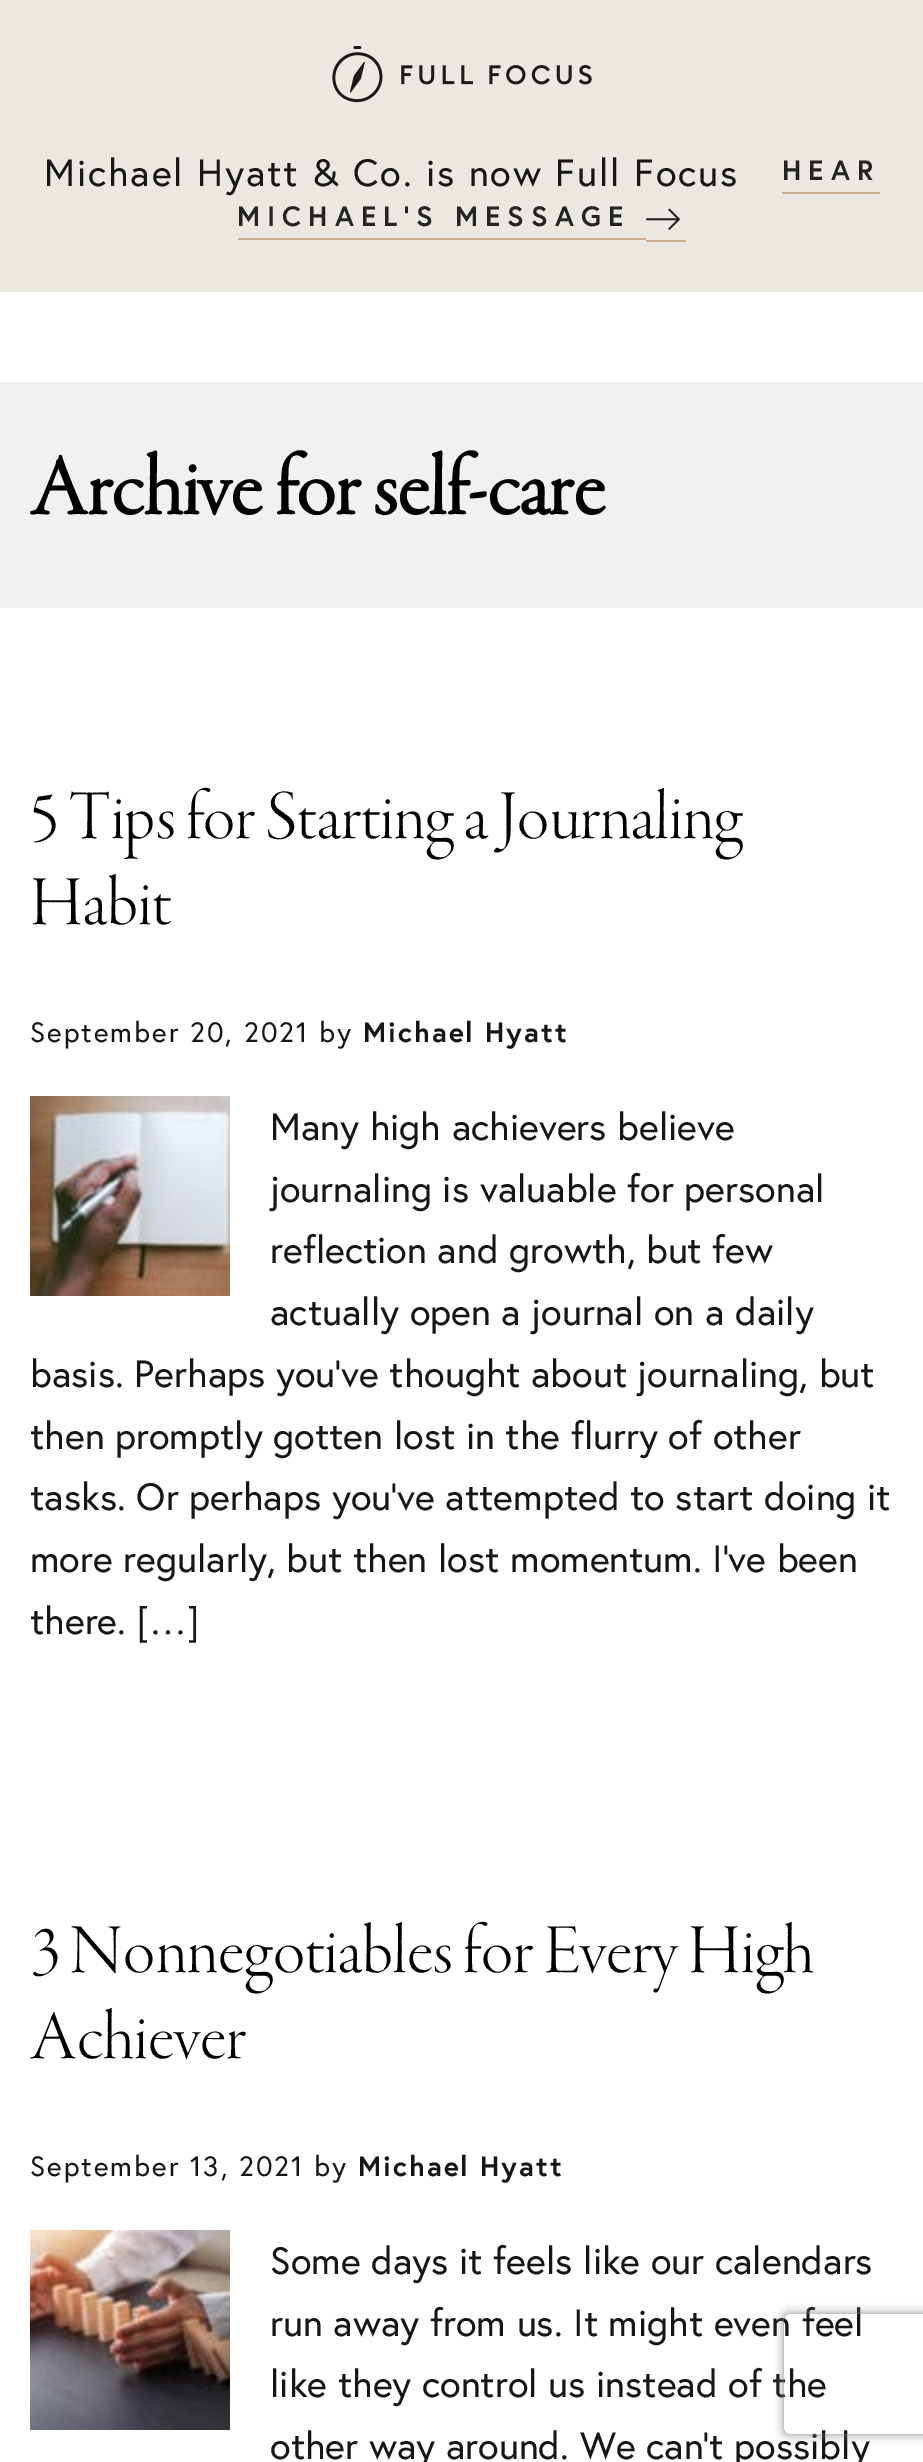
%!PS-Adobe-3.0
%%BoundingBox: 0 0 923 2462
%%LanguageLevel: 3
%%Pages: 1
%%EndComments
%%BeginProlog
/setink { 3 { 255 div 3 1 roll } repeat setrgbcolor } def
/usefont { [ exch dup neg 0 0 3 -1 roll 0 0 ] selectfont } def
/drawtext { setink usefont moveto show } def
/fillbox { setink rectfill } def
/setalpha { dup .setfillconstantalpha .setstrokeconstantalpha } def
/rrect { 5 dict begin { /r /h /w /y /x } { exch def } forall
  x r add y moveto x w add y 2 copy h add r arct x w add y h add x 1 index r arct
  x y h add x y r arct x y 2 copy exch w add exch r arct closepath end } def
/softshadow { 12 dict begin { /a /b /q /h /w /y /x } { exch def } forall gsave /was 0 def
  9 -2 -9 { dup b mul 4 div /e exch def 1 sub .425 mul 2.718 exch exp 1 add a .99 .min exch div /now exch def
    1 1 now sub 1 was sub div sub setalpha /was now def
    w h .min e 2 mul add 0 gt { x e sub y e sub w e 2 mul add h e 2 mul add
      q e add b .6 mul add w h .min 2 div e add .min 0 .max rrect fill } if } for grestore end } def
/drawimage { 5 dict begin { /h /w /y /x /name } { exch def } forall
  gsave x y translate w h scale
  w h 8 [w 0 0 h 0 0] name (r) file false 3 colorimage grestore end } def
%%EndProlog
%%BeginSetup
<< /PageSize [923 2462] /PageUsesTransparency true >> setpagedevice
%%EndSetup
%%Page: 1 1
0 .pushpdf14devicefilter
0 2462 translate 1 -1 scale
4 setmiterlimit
0 0 923 2462 255 255 255 fillbox
0 0 923 292 235 232 226 fillbox
(assets/img1.rgb) 332 46 260 57 drawimage
/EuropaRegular-Regular 38 usefont
22 22 22 setink
44 186 moveto 1.9 0 (Michael Hyatt & Co. is now Full Focus) ashow
782 192 98 2 204 176 143 fillbox
238 238 408 2 204 176 143 fillbox
646 240 40 2 204 176 143 fillbox
/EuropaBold-Bold 28 usefont
35 35 35 setink
782 180 moveto 7 0 (HEAR) ashow
237 226 moveto 7 0 (MICHAEL'S MESSAGE) ashow
(assets/img2.rgb) 646 208 34 22 drawimage
0 382 923 226 241 241 241 fillbox
(Archive for self-care) 30 514 /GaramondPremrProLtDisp-Bold 88 0 0 0 drawtext
(5 Tips for Starting a Journaling) 30 838 /GaramondPremrProLtDisp-Light 72 0 0 0 drawtext
(Habit) 30 924 /GaramondPremrProLtDisp-Light 72 0 0 0 drawtext
/EuropaRegular-Regular 28 usefont
22 22 22 setink
30 1042 moveto 2 0 (September 20, 2021 by) ashow
/EuropaBold-Bold 28 usefont
363 1042 moveto 2 0 (Michael Hyatt) ashow
(assets/img3.rgb) 30 1096 200 200 drawimage
(Many high achievers believe) 270 1140 /EuropaRegular-Regular 38 22 22 22 drawtext
(journaling is valuable for personal) 270 1202 /EuropaRegular-Regular 38 22 22 22 drawtext
(reflection and growth, but few) 270 1263 /EuropaRegular-Regular 38 22 22 22 drawtext
(actually open a journal on a daily) 270 1325 /EuropaRegular-Regular 38 22 22 22 drawtext
(basis. Perhaps you’ve thought about journaling, but) 30 1387 /EuropaRegular-Regular 38 22 22 22 drawtext
(then promptly gotten lost in the flurry of other) 30 1449 /EuropaRegular-Regular 38 22 22 22 drawtext
(tasks. Or perhaps you’ve attempted to start doing it) 30 1510 /EuropaRegular-Regular 38 22 22 22 drawtext
(more regularly, but then lost momentum. I’ve been) 30 1572 /EuropaRegular-Regular 38 22 22 22 drawtext
(there. […]) 30 1634 /EuropaRegular-Regular 38 22 22 22 drawtext
(3 Nonnegotiables for Every High) 30 1972 /GaramondPremrProLtDisp-Light 72 0 0 0 drawtext
(Achiever) 30 2058 /GaramondPremrProLtDisp-Light 72 0 0 0 drawtext
/EuropaRegular-Regular 28 usefont
22 22 22 setink
30 2176 moveto 2 0 (September 13, 2021 by) ashow
/EuropaBold-Bold 28 usefont
358 2176 moveto 2 0 (Michael Hyatt) ashow
(assets/img4.rgb) 30 2230 200 200 drawimage
(Some days it feels like our calendars) 270 2274 /EuropaRegular-Regular 38 22 22 22 drawtext
(run away from us. It might even feel) 270 2336 /EuropaRegular-Regular 38 22 22 22 drawtext
(like they control us instead of the) 270 2397 /EuropaRegular-Regular 38 22 22 22 drawtext
(other way around. We can’t possibly) 270 2459 /EuropaRegular-Regular 38 22 22 22 drawtext
gsave
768 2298 moveto 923 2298 lineto 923 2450 lineto 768 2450 lineto closepath 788 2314 moveto 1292 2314 lineto 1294 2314 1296 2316 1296 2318 curveto 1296 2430 lineto 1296 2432 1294 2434 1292 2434 curveto 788 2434 lineto 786 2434 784 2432 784 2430 curveto 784 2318 lineto 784 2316 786 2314 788 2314 curveto closepath eoclip newpath
128 128 128 setink
784 2314 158 120 4 5 1 softshadow
grestore
.poppdf14devicefilter showpage
%%EOF
